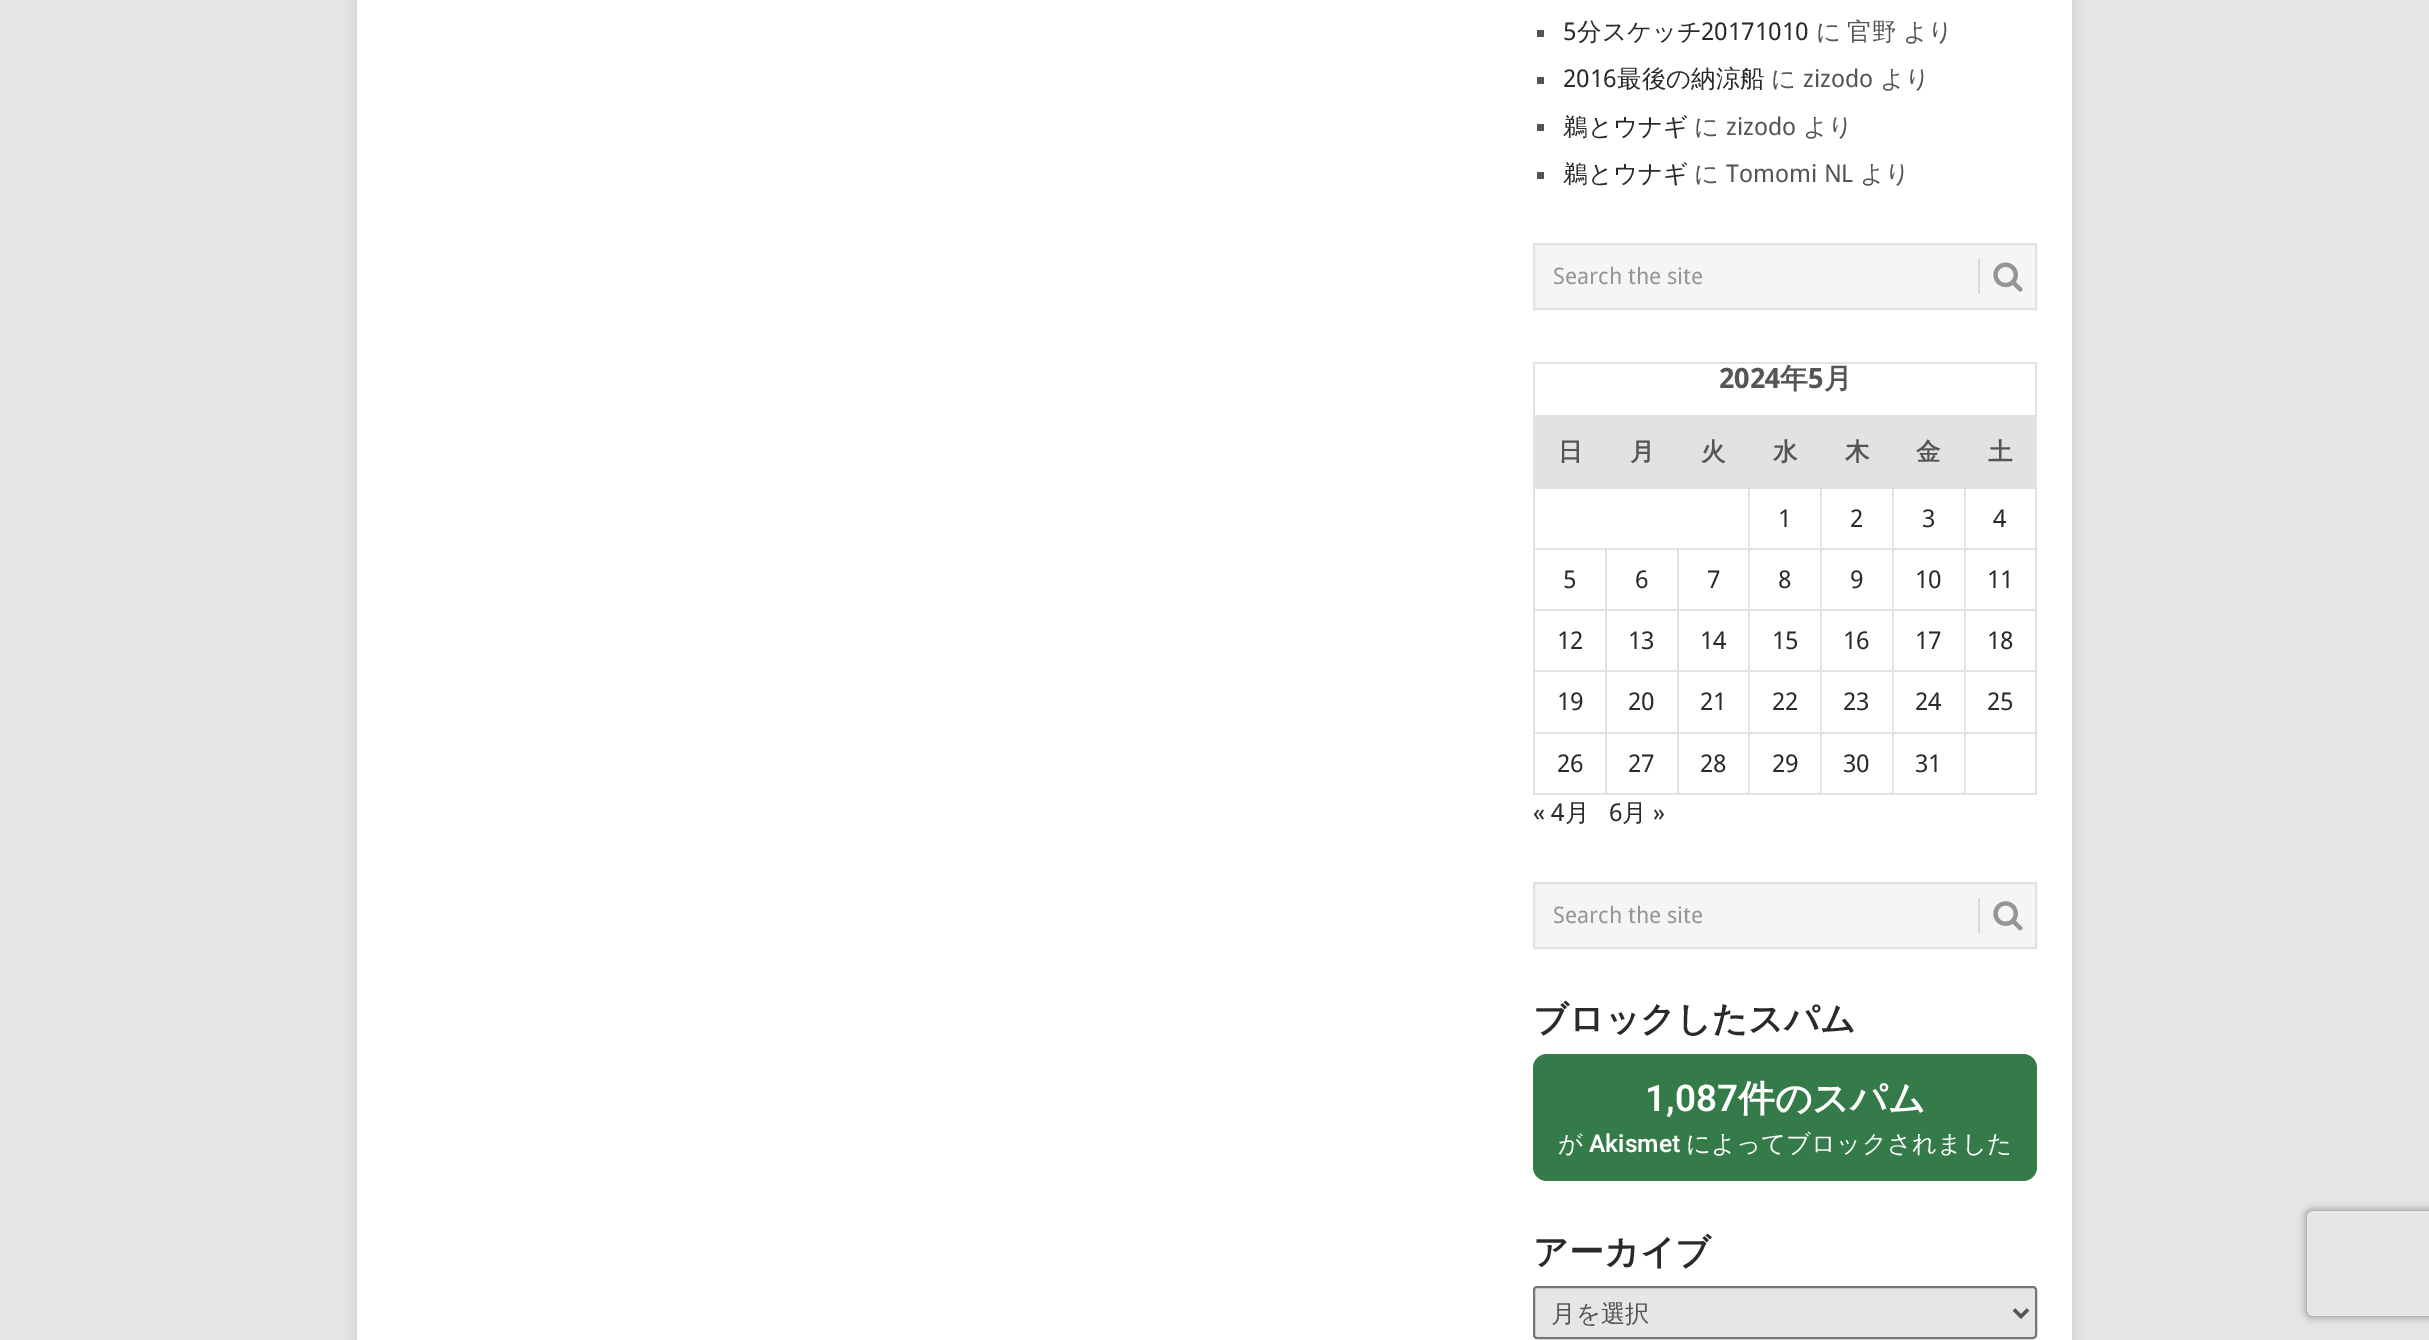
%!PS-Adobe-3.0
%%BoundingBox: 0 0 2429 1340
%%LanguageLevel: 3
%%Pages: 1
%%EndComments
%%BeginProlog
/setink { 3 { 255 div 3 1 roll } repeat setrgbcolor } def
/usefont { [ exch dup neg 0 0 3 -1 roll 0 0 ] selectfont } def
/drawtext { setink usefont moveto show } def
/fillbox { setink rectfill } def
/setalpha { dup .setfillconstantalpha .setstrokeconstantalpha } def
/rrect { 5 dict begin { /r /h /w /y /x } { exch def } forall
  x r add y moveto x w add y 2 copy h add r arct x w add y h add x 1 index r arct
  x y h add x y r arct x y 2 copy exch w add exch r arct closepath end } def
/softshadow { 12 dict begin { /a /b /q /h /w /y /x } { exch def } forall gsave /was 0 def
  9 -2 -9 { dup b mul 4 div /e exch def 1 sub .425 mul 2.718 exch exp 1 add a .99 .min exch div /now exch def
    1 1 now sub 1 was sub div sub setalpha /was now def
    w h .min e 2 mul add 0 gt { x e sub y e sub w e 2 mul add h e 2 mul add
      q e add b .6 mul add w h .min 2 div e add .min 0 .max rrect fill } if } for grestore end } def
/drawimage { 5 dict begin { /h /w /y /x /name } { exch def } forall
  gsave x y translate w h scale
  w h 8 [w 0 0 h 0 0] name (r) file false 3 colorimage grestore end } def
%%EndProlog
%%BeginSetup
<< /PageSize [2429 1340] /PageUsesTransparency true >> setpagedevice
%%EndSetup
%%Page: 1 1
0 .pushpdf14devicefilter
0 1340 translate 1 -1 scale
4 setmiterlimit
0 0 2429 1340 231 229 230 fillbox
50 50 50 setink
357 -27 1715 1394 0 9 0.17 softshadow
357 0 1715 1340 255 255 255 fillbox
1537 30 7 7 85 85 85 fillbox
(5) 1563 40 /DroidSans-Regular 24.5 42 42 42 drawtext
(分スケッチ) 1577 40 /WenQuanYiZenHei-Medium 24.5 42 42 42 drawtext
(20171010) 1701 40 /DroidSans-Regular 24.5 42 42 42 drawtext
(に) 1816 40 /WenQuanYiZenHei-Medium 24.5 85 85 85 drawtext
(官野) 1847 40 /WenQuanYiZenHei-Medium 24.5 85 85 85 drawtext
(より) 1903 40 /WenQuanYiZenHei-Medium 24.5 85 85 85 drawtext
1537 77 7 7 85 85 85 fillbox
(2016) 1563 87 /DroidSans-Regular 24.5 42 42 42 drawtext
(最後の納涼船) 1617 87 /WenQuanYiZenHei-Medium 24.5 42 42 42 drawtext
(に) 1771 87 /WenQuanYiZenHei-Medium 24.5 85 85 85 drawtext
(zizodo) 1803 87 /DroidSans-Regular 24.5 85 85 85 drawtext
(より) 1880 87 /WenQuanYiZenHei-Medium 24.5 85 85 85 drawtext
1537 124 7 7 85 85 85 fillbox
(鵜とウナギ) 1563 135 /WenQuanYiZenHei-Medium 24.5 42 42 42 drawtext
(に) 1694 135 /WenQuanYiZenHei-Medium 24.5 85 85 85 drawtext
(zizodo) 1726 135 /DroidSans-Regular 24.5 85 85 85 drawtext
(より) 1803 135 /WenQuanYiZenHei-Medium 24.5 85 85 85 drawtext
1537 172 7 7 85 85 85 fillbox
(鵜とウナギ) 1563 182 /WenQuanYiZenHei-Medium 24.5 42 42 42 drawtext
(に) 1694 182 /WenQuanYiZenHei-Medium 24.5 85 85 85 drawtext
(Tomomi NL) 1726 182 /DroidSans-Regular 24.5 85 85 85 drawtext
(より) 1860 182 /WenQuanYiZenHei-Medium 24.5 85 85 85 drawtext
245 245 245 setink
1534 244 moveto 2036 244 lineto 2036 309 lineto 1534 309 lineto closepath gsave fill grestore
226 226 226 setink
2 setlinewidth
stroke
(Search the site) 1553 284 /DroidSans-Regular 22.75 149 149 149 drawtext
1978 259 2 35 216 216 216 fillbox
(assets/img1.rgb) 1993 262 30 30 drawimage
1533 362 504 2 226 226 226 fillbox
2035 362 2 433 226 226 226 fillbox
1533 793 504 2 226 226 226 fillbox
1533 362 2 433 226 226 226 fillbox
(2024) 1719 388 /DroidSans-Bold 28 85 85 85 drawtext
(年) 1780 388 /WenQuanYiZenHei-Bold 28 85 85 85 drawtext
(5) 1808 388 /DroidSans-Bold 28 85 85 85 drawtext
(月) 1824 388 /WenQuanYiZenHei-Bold 28 85 85 85 drawtext
1535 415 500 72 226 226 226 fillbox
(日) 1558 460 /WenQuanYiZenHei-Bold 24.5 85 85 85 drawtext
(月) 1630 460 /WenQuanYiZenHei-Bold 24.5 85 85 85 drawtext
(火) 1701 460 /WenQuanYiZenHei-Bold 24.5 85 85 85 drawtext
(水) 1773 460 /WenQuanYiZenHei-Bold 24.5 85 85 85 drawtext
(木) 1845 460 /WenQuanYiZenHei-Bold 24.5 85 85 85 drawtext
(金) 1916 460 /WenQuanYiZenHei-Bold 24.5 85 85 85 drawtext
(土) 1988 460 /WenQuanYiZenHei-Bold 24.5 85 85 85 drawtext
1964 487 73 2 226 226 226 fillbox
1964 548 73 2 226 226 226 fillbox
1964 609 73 2 226 226 226 fillbox
1964 670 73 2 226 226 226 fillbox
1964 732 73 2 226 226 226 fillbox
1964 732 2 63 226 226 226 fillbox
1892 732 73 2 226 226 226 fillbox
1964 670 2 63 226 226 226 fillbox
1892 670 73 2 226 226 226 fillbox
1964 609 2 63 226 226 226 fillbox
1892 609 73 2 226 226 226 fillbox
1964 548 2 63 226 226 226 fillbox
1892 548 73 2 226 226 226 fillbox
1964 487 2 63 226 226 226 fillbox
1892 487 73 2 226 226 226 fillbox
1892 732 2 63 226 226 226 fillbox
1820 732 74 2 226 226 226 fillbox
1892 670 2 63 226 226 226 fillbox
1820 670 74 2 226 226 226 fillbox
1892 609 2 63 226 226 226 fillbox
1820 609 74 2 226 226 226 fillbox
1892 548 2 63 226 226 226 fillbox
1820 548 74 2 226 226 226 fillbox
1892 487 2 63 226 226 226 fillbox
1820 487 74 2 226 226 226 fillbox
1820 732 2 63 226 226 226 fillbox
1748 732 74 2 226 226 226 fillbox
1820 670 2 63 226 226 226 fillbox
1748 670 74 2 226 226 226 fillbox
1820 609 2 63 226 226 226 fillbox
1748 609 74 2 226 226 226 fillbox
1820 548 2 63 226 226 226 fillbox
1748 548 74 2 226 226 226 fillbox
1820 487 2 63 226 226 226 fillbox
1748 487 74 2 226 226 226 fillbox
1748 732 2 63 226 226 226 fillbox
1677 732 73 2 226 226 226 fillbox
1748 670 2 63 226 226 226 fillbox
1677 670 73 2 226 226 226 fillbox
1748 609 2 63 226 226 226 fillbox
1677 609 73 2 226 226 226 fillbox
1748 548 2 63 226 226 226 fillbox
1677 548 73 2 226 226 226 fillbox
1748 487 2 63 226 226 226 fillbox
1533 487 217 2 226 226 226 fillbox
(1) 1778 527 /DroidSans-Regular 24.5 42 42 42 drawtext
(2) 1850 527 /DroidSans-Regular 24.5 42 42 42 drawtext
(3) 1922 527 /DroidSans-Regular 24.5 42 42 42 drawtext
(4) 1993 527 /DroidSans-Regular 24.5 42 42 42 drawtext
1677 732 2 63 226 226 226 fillbox
1605 732 73 2 226 226 226 fillbox
1677 670 2 63 226 226 226 fillbox
1605 670 73 2 226 226 226 fillbox
1677 609 2 63 226 226 226 fillbox
1605 609 73 2 226 226 226 fillbox
1677 548 2 63 226 226 226 fillbox
1605 548 73 2 226 226 226 fillbox
1605 732 2 63 226 226 226 fillbox
1533 732 74 2 226 226 226 fillbox
1605 670 2 63 226 226 226 fillbox
1533 670 74 2 226 226 226 fillbox
1605 609 2 63 226 226 226 fillbox
1533 609 74 2 226 226 226 fillbox
1605 548 2 63 226 226 226 fillbox
1533 548 74 2 226 226 226 fillbox
(5) 1563 588 /DroidSans-Regular 24.5 42 42 42 drawtext
(6) 1635 588 /DroidSans-Regular 24.5 42 42 42 drawtext
(7) 1707 588 /DroidSans-Regular 24.5 42 42 42 drawtext
(8) 1778 588 /DroidSans-Regular 24.5 42 42 42 drawtext
(9) 1850 588 /DroidSans-Regular 24.5 42 42 42 drawtext
(10) 1915 588 /DroidSans-Regular 24.5 42 42 42 drawtext
(11) 1987 588 /DroidSans-Regular 24.5 42 42 42 drawtext
(12) 1557 649 /DroidSans-Regular 24.5 42 42 42 drawtext
(13) 1628 649 /DroidSans-Regular 24.5 42 42 42 drawtext
(14) 1700 649 /DroidSans-Regular 24.5 42 42 42 drawtext
(15) 1772 649 /DroidSans-Regular 24.5 42 42 42 drawtext
(16) 1843 649 /DroidSans-Regular 24.5 42 42 42 drawtext
(17) 1915 649 /DroidSans-Regular 24.5 42 42 42 drawtext
(18) 1987 649 /DroidSans-Regular 24.5 42 42 42 drawtext
(19) 1557 710 /DroidSans-Regular 24.5 42 42 42 drawtext
(20) 1628 710 /DroidSans-Regular 24.5 42 42 42 drawtext
(21) 1700 710 /DroidSans-Regular 24.5 42 42 42 drawtext
(22) 1772 710 /DroidSans-Regular 24.5 42 42 42 drawtext
(23) 1843 710 /DroidSans-Regular 24.5 42 42 42 drawtext
(24) 1915 710 /DroidSans-Regular 24.5 42 42 42 drawtext
(25) 1987 710 /DroidSans-Regular 24.5 42 42 42 drawtext
(26) 1557 772 /DroidSans-Regular 24.5 42 42 42 drawtext
(27) 1628 772 /DroidSans-Regular 24.5 42 42 42 drawtext
(28) 1700 772 /DroidSans-Regular 24.5 42 42 42 drawtext
(29) 1772 772 /DroidSans-Regular 24.5 42 42 42 drawtext
(30) 1843 772 /DroidSans-Regular 24.5 42 42 42 drawtext
(31) 1915 772 /DroidSans-Regular 24.5 42 42 42 drawtext
(« 4) 1533 821 /DroidSans-Regular 24.5 42 42 42 drawtext
(月) 1565 821 /WenQuanYiZenHei-Medium 24.5 42 42 42 drawtext
(6) 1609 821 /DroidSans-Regular 24.5 42 42 42 drawtext
(月) 1622 821 /WenQuanYiZenHei-Medium 24.5 42 42 42 drawtext
(») 1653 821 /DroidSans-Regular 24.5 42 42 42 drawtext
245 245 245 setink
1534 883 moveto 2036 883 lineto 2036 948 lineto 1534 948 lineto closepath gsave fill grestore
226 226 226 setink
stroke
(Search the site) 1553 923 /DroidSans-Regular 22.75 149 149 149 drawtext
1978 898 2 35 216 216 216 fillbox
(assets/img2.rgb) 1993 901 30 30 drawimage
(ブロックしたスパム) 1533 1031 /WenQuanYiZenHei-Bold 35 42 42 42 drawtext
53 123 73 setink
1533 1054 504 127 14 rrect fill
(1,087) 1645 1111 /Roboto-SemiBold 36.75 255 255 255 drawtext
(件のスパム) 1738 1111 /WenQuanYiZenHei-Bold 36.75 255 255 255 drawtext
(が) 1558 1152 /WenQuanYiZenHei-Medium 24.5 255 255 255 drawtext
(Akismet) 1589 1152 /Roboto-SemiBold 24.5 255 255 255 drawtext
(によってブロックされました) 1686 1152 /WenQuanYiZenHei-Medium 24.5 255 255 255 drawtext
(アーカイブ) 1533 1264 /WenQuanYiZenHei-Bold 35 42 42 42 drawtext
231 229 230 setink
1534 1287 502 51 3 rrect gsave fill grestore
118 118 118 setink
stroke
85 85 85 setink
3.5 setlinewidth
2014 1309.5 moveto 2021 1316.5 lineto 2028 1309.5 lineto stroke
(月を選択) 1551 1322 /WenQuanYiZenHei-Medium 24.5 85 85 85 drawtext
gsave
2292 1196 moveto 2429 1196 lineto 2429 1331 lineto 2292 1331 lineto closepath 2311 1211 moveto 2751 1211 lineto 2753 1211 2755 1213 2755 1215 curveto 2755 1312 lineto 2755 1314 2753 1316 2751 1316 curveto 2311 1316 lineto 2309 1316 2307 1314 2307 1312 curveto 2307 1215 lineto 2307 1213 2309 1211 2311 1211 curveto closepath eoclip newpath
128 128 128 setink
2307 1211 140 105 4 4.5 1 softshadow
grestore
.poppdf14devicefilter showpage
%%EOF
